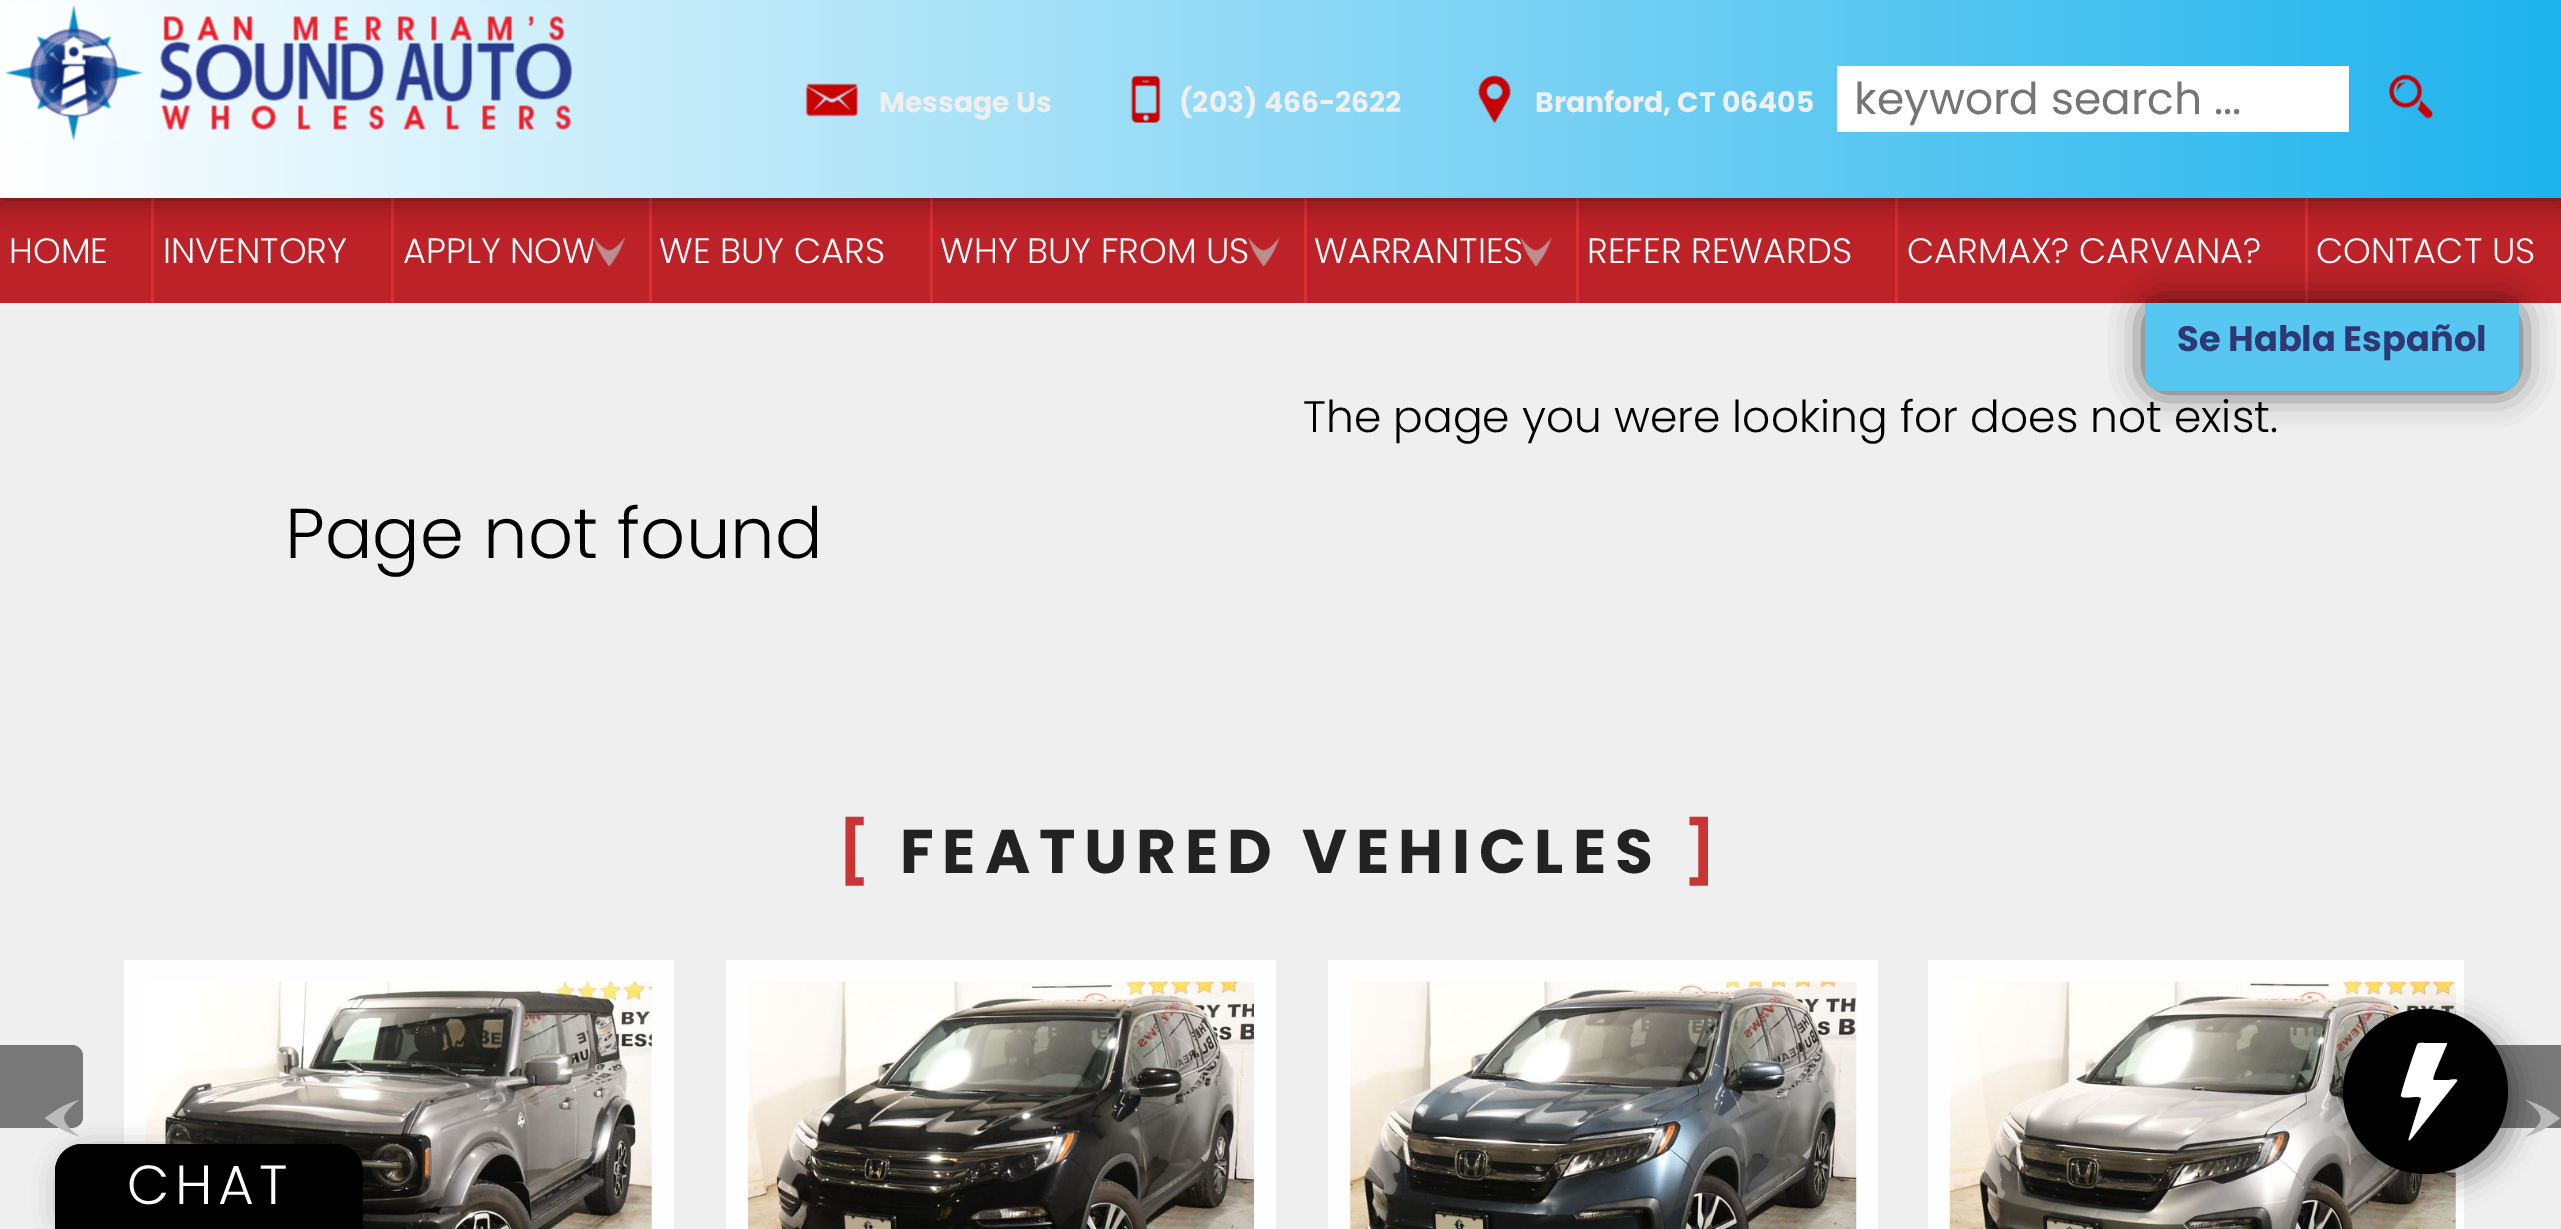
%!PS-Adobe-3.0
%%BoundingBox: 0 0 2561 1229
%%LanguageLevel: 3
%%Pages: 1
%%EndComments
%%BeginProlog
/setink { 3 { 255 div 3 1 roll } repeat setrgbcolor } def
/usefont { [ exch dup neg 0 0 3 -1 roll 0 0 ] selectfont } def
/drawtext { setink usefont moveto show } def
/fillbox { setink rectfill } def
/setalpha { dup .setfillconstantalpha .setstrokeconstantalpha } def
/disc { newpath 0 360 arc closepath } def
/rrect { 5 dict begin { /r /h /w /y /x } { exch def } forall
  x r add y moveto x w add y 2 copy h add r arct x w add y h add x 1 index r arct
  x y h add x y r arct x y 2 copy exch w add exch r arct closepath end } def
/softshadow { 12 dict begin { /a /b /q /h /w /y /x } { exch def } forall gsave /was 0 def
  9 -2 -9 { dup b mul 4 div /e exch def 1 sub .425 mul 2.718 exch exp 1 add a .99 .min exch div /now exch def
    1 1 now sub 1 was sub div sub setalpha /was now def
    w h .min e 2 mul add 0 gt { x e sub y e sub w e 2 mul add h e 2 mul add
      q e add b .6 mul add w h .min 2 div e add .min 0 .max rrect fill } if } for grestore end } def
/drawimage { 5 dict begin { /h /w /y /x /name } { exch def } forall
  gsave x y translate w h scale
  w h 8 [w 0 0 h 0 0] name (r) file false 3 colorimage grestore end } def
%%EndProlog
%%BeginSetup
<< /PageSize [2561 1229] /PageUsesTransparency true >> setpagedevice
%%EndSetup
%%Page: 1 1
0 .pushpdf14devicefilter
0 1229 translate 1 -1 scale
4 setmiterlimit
0 0 2561 1229 239 239 239 fillbox
0 198 2561 105 188 34 40 fillbox
151 198 3 105 217 46 52 fillbox
391 198 3 105 217 46 52 fillbox
649 198 3 105 217 46 52 fillbox
(APPLY NOW) 403 263 /Poppins-Light 35.25 254 254 254 drawtext
(assets/img6.rgb) 593 237 33 30 drawimage
930 198 3 105 217 46 52 fillbox
1304 198 3 105 217 46 52 fillbox
(assets/img7.rgb) 1248 237 32 30 drawimage
1576 198 3 105 217 46 52 fillbox
(WARRANTIES) 1314 263 /Poppins-Light 35.25 254 254 254 drawtext
(assets/img8.rgb) 1520 237 32 30 drawimage
1895 198 3 105 217 46 52 fillbox
2305 198 3 105 217 46 52 fillbox
0 0 0 setink
0 0 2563 198 0 14 0.5 softshadow
gsave 0 0 moveto 2561 0 lineto 2561 198 lineto 0 198 lineto closepath clip newpath
<< /ShadingType 2 /ColorSpace /DeviceRGB /Coords [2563 99 0 99] /Extend [true true] /Function << /FunctionType 2 /Domain [0 1] /C0 [0.118 0.702 0.929] /C1 [1 1 1] /N 1 >> >> shfill grestore
(assets/img1.rgb) 6 6 566 135 drawimage
(assets/img2.rgb) 805 83 54 34 drawimage
(Message Us) 879 112 /Poppins-Bold 28.25 239 239 239 drawtext
(assets/img3.rgb) 1131 75 30 48 drawimage
(\(203\) 466-2622) 1179 112 /Poppins-Bold 28.25 239 239 239 drawtext
(assets/img4.rgb) 1478 75 33 48 drawimage
(Branford, CT 06405) 1535 112 /Poppins-Bold 28.25 239 239 239 drawtext
1837 66 512 66 255 255 255 fillbox
(keyword search ...) 1854 114 /Poppins-Regular 44 117 117 117 drawtext
(assets/img5.rgb) 2389 74 44 45 drawimage
1 1 1 setink
2145 303 374 88 17 16.5 0.7 softshadow
87 198 241 setink
2145 303 moveto 2519 303 lineto 2519 374 lineto 2519 383.5 2511.5 391 2502 391 curveto 2162 391 lineto 2152.5 391 2145 383.5 2145 374 curveto closepath fill
(Se Habla Español) 2177 351 /Poppins-Bold 35.25 46 57 116 drawtext
(HOME) 9 263 /Poppins-Light 35.25 254 254 254 drawtext
(INVENTORY) 163 263 /Poppins-Light 35.25 254 254 254 drawtext
(WE BUY CARS) 659 263 /Poppins-Light 35.25 254 254 254 drawtext
(WHY BUY FROM US) 940 263 /Poppins-Light 35.25 254 254 254 drawtext
(REFER REWARDS) 1587 263 /Poppins-Light 35.25 254 254 254 drawtext
(CARMAX? CARVANA?) 1907 263 /Poppins-Light 35.25 254 254 254 drawtext
(CONTACT US) 2316 263 /Poppins-Light 35.25 254 254 254 drawtext
(The page you were looking for does not exist.) 1303 432 /Poppins-Light 44 0 0 0 drawtext
(Page not found) 285 558 /Poppins-Light 70.5 0 0 0 drawtext
/Poppins-Bold 61.6 usefont
199 53 53 setink
838 873 moveto 8.75 0 ([) ashow
34 34 34 setink
900 873 moveto 8.75 0 (FEATURED VEHICLES) ashow
199 53 53 setink
1684 873 moveto 8.75 0 (]) ashow
120 120 120 setink
0 1045 moveto 72 1045 lineto 78 1045 83 1050 83 1056 curveto 83 1117 lineto 83 1123 78 1128 72 1128 curveto 0 1128 lineto closepath fill
(assets/img9.rgb) 44 1099 36 38 drawimage
124 960 550 269 254 254 254 fillbox
(assets/img10.rgb) 145 981 507 248 drawimage
726 960 550 269 254 254 254 fillbox
(assets/img11.rgb) 748 981 506 248 drawimage
1328 960 550 269 254 254 254 fillbox
(assets/img12.rgb) 1350 981 507 248 drawimage
1928 960 536 269 254 254 254 fillbox
(assets/img13.rgb) 1949 981 507 248 drawimage
2493 1045 68 83 120 120 120 fillbox
(assets/img14.rgb) 2525 1099 36 38 drawimage
0 0 0 setink
63 1152 308 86 28 14 0.4 softshadow
83 1144 moveto 335 1144 lineto 350.5 1144 363 1156.5 363 1172 curveto 363 1229 lineto 55 1229 lineto 55 1172 lineto 55 1156.5 67.5 1144 83 1144 curveto closepath fill
82 1144 moveto 75 1144 68 1147 63 1152 curveto 69 1158 lineto 72 1154 77 1152 82 1152 curveto 336 1152 lineto 341 1152 346 1154 349 1158 curveto 355 1152 lineto 350 1147 343 1144 336 1144 curveto closepath fill
363 1229 moveto 363 1172 lineto 363 1164 360 1157 355 1152 curveto 349 1158 lineto 353 1161 355 1166 355 1172 curveto 355 1221 lineto closepath fill
55 1172 moveto 55 1229 lineto 63 1221 lineto 63 1172 lineto 63 1166 65 1161 69 1158 curveto 63 1152 lineto 58 1157 55 1164 55 1172 curveto closepath fill
/Poppins-Light 55 usefont
254 254 254 setink
127 1204 moveto 5.5 0 (CHAT) ashow
0 0 0 setink
2351 1018 165 165 82.5 14 0.4 softshadow
2425.5 1091.5 82.5 disc fill
255 255 255 setink
2417 1045 moveto 2418 1042 2422 1043 2424 1043 curveto 2446 1043 lineto 2447 1043 lineto 2447 1044 lineto 2435 1072 lineto 2434 1076 2432 1080 2434 1080 curveto 2449 1080 lineto 2449 1080 2459 1078 2457 1081 curveto 2411 1139 lineto 2409 1141 2408 1141 2409 1138 curveto 2421 1099 lineto 2422 1094 2403 1100 2401 1096 curveto 2400 1095 2415 1050 2417 1045 curveto closepath fill
.poppdf14devicefilter showpage
%%EOF
